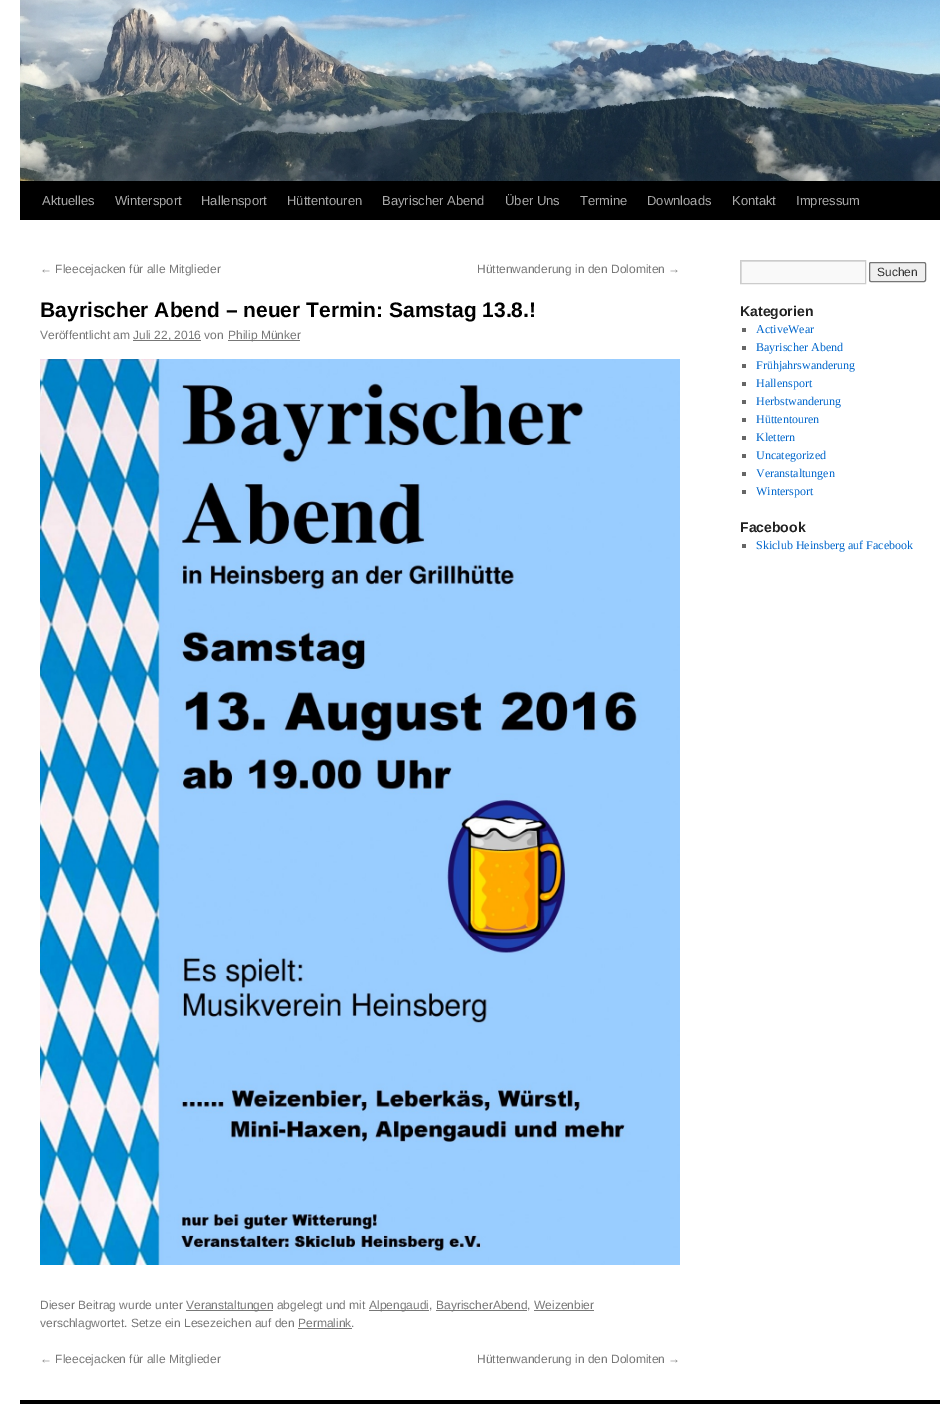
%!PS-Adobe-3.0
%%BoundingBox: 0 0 940 1416
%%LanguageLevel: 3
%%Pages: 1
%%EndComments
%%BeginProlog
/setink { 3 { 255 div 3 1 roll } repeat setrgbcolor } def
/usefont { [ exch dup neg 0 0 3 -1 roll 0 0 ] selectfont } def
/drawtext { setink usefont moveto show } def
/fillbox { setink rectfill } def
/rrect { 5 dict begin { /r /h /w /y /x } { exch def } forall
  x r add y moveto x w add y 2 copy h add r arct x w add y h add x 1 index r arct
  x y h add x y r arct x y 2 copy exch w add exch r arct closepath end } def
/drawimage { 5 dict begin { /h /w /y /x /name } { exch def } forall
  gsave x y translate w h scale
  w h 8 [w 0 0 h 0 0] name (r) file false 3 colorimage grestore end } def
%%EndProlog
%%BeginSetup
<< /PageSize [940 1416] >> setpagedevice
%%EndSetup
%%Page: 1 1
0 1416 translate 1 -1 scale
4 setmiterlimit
0 0 940 1416 255 255 255 fillbox
20 181 920 39 0 0 0 fillbox
(assets/img1.rgb) 20 0 920 181 drawimage
(Aktuelles) 42 205 /LiberationSans-Regular 13 170 170 170 drawtext
(Wintersport) 115 205 /LiberationSans-Regular 13 170 170 170 drawtext
(Hallensport) 201 205 /LiberationSans-Regular 13 170 170 170 drawtext
(Hüttentouren) 287 205 /LiberationSans-Regular 13 170 170 170 drawtext
(Bayrischer Abend) 382 205 /LiberationSans-Regular 13 170 170 170 drawtext
(Über Uns) 505 205 /LiberationSans-Regular 13 170 170 170 drawtext
(Termine) 580 205 /LiberationSans-Regular 13 170 170 170 drawtext
(Downloads) 647 205 /LiberationSans-Regular 13 170 170 170 drawtext
(Kontakt) 732 205 /LiberationSans-Regular 13 170 170 170 drawtext
(Impressum) 796 205 /LiberationSans-Regular 13 170 170 170 drawtext
(← Fleecejacken für alle Mitglieder) 40 273 /LiberationSans-Regular 12 119 119 119 drawtext
(Hüttenwanderung in den Dolomiten →) 477 273 /LiberationSans-Regular 12 119 119 119 drawtext
(Bayrischer Abend – neuer Termin: Samstag 13.8.!) 40 317 /LiberationSans-Bold 21 0 0 0 drawtext
(Veröffentlicht am) 40 339 /LiberationSans-Regular 12 119 119 119 drawtext
133 340 68 1 119 119 119 fillbox
(Juli 22, 2016 von) 133 339 /LiberationSans-Regular 12 119 119 119 drawtext
228 340 72 1 119 119 119 fillbox
(Philip Münker) 228 339 /LiberationSans-Regular 12 119 119 119 drawtext
(assets/img2.rgb) 40 359 640 906 drawimage
(Dieser Beitrag wurde unter) 40 1309 /LiberationSans-Regular 12 119 119 119 drawtext
186 1310 87 1 119 119 119 fillbox
(Veranstaltungen abgelegt und mit) 186 1309 /LiberationSans-Regular 12 119 119 119 drawtext
369 1310 60 1 119 119 119 fillbox
(Alpengaudi,) 369 1309 /LiberationSans-Regular 12 119 119 119 drawtext
436 1310 91 1 119 119 119 fillbox
(BayrischerAbend, Weizenbier) 436 1309 /LiberationSans-Regular 12 119 119 119 drawtext
534 1310 60 1 119 119 119 fillbox
(verschlagwortet. Setze ein Lesezeichen auf den Permalink.) 40 1327 /LiberationSans-Regular 12 119 119 119 drawtext
298 1328 54 1 119 119 119 fillbox
(← Fleecejacken für alle Mitglieder) 40 1363 /LiberationSans-Regular 12 119 119 119 drawtext
(Hüttenwanderung in den Dolomiten →) 477 1363 /LiberationSans-Regular 12 119 119 119 drawtext
742 262 123 21 249 249 249 fillbox
gsave
741 261 124 22 rectclip
224 224 224 setink
642 162 moveto 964 162 lineto 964 382 lineto 642 382 lineto closepath 742 262 moveto 866 262 lineto 866 284 lineto 742 284 lineto closepath eofill
grestore
204 204 204 setink
740.5 260.5 125 23 rectstroke
239 239 239 setink
869.5 262.5 56 19 1.5 rrect gsave fill grestore
118 118 118 setink
stroke
(Suchen) 877 276 /LiberationSans-Regular 12 51 51 51 drawtext
(Kategorien) 740 316 /LiberationSans-Bold 14 34 34 34 drawtext
742 328 4 4 102 102 102 fillbox
(ActiveWear) 756 333 /LiberationSerif-Regular 12 0 102 204 drawtext
742 346 4 4 102 102 102 fillbox
(Bayrischer Abend) 756 351 /LiberationSerif-Regular 12 0 102 204 drawtext
742 364 4 4 102 102 102 fillbox
(Frühjahrswanderung) 756 369 /LiberationSerif-Regular 12 0 102 204 drawtext
742 382 4 4 102 102 102 fillbox
(Hallensport) 756 387 /LiberationSerif-Regular 12 0 102 204 drawtext
742 400 4 4 102 102 102 fillbox
(Herbstwanderung) 756 405 /LiberationSerif-Regular 12 0 102 204 drawtext
742 418 4 4 102 102 102 fillbox
(Hüttentouren) 756 423 /LiberationSerif-Regular 12 0 102 204 drawtext
742 436 4 4 102 102 102 fillbox
(Klettern) 756 441 /LiberationSerif-Regular 12 0 102 204 drawtext
742 454 4 4 102 102 102 fillbox
(Uncategorized) 756 459 /LiberationSerif-Regular 12 0 102 204 drawtext
742 472 4 4 102 102 102 fillbox
(Veranstaltungen) 756 477 /LiberationSerif-Regular 12 0 102 204 drawtext
742 490 4 4 102 102 102 fillbox
(Wintersport) 756 495 /LiberationSerif-Regular 12 0 102 204 drawtext
(Facebook) 740 532 /LiberationSans-Bold 14 34 34 34 drawtext
742 544 4 4 102 102 102 fillbox
(Skiclub Heinsberg auf Facebook) 756 549 /LiberationSerif-Regular 12 0 102 204 drawtext
20 1400 920 4 0 0 0 fillbox
showpage
%%EOF
